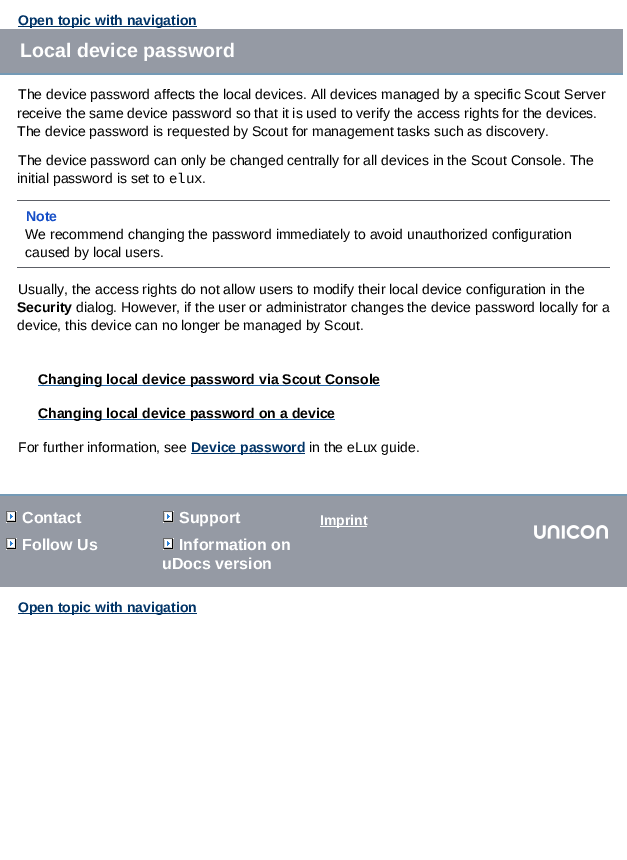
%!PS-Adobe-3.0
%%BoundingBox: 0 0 627 860
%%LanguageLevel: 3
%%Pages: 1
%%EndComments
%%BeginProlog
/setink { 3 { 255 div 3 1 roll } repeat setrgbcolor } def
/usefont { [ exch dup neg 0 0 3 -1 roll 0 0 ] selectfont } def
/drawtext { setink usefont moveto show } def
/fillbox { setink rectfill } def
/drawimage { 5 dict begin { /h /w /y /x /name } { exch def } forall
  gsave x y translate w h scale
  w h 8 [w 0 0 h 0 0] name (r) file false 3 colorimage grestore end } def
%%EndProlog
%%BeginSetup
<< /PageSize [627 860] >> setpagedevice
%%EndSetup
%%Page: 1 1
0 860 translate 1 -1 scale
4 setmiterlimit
0 0 627 860 255 255 255 fillbox
18 26 179 1 0 51 102 fillbox
(Open topic with navigation) 18 25 /LiberationSans-Bold 14 0 51 102 drawtext
0 29 623 44 149 154 164 fillbox
0 73 623 2 116 154 182 fillbox
(Local device password) 20 57 /LiberationSans-Bold 19.6 255 255 255 drawtext
(The device password affects the local devices. All devices managed by a specific Scout Server) 18 99 /LiberationSans-Regular 14 0 0 0 drawtext
(receive the same device password so that it is used to verify the access rights for the devices.) 17 118 /LiberationSans-Regular 14 0 0 0 drawtext
(The device password is requested by Scout for management tasks such as discovery.) 17 136 /LiberationSans-Regular 14 0 0 0 drawtext
(The device password can only be changed centrally for all devices in the Scout Console. The) 18 165 /LiberationSans-Regular 14 0 0 0 drawtext
(initial password is set to) 17 183 /LiberationSans-Regular 14 0 0 0 drawtext
(elux) 169 183 /LiberationMono-Regular 14 0 0 0 drawtext
(.) 202 183 /LiberationSans-Regular 14 0 0 0 drawtext
17 200 593 1 93 96 102 fillbox
17 267 593 1 93 96 102 fillbox
(Note) 26 221 /LiberationSans-Bold 14 21 78 199 drawtext
(We recommend changing the password immediately to avoid unauthorized configuration) 25 239 /LiberationSans-Regular 14 0 0 0 drawtext
(caused by local users.) 25 257 /LiberationSans-Regular 14 0 0 0 drawtext
(Usually, the access rights do not allow users to modify their local device configuration in the) 18 294 /LiberationSans-Regular 14 0 0 0 drawtext
(Security) 17 312 /LiberationSans-Bold 14 0 0 0 drawtext
(dialog. However, if the user or administrator changes the device password locally for a) 76 312 /LiberationSans-Regular 14 0 0 0 drawtext
(device, this device can no longer be managed by Scout.) 17 330 /LiberationSans-Regular 14 0 0 0 drawtext
38 385 342 1 32 101 169 fillbox
(Changing local device password via Scout Console) 38 384 /LiberationSans-Bold 14 0 0 0 drawtext
38 419 297 1 32 101 169 fillbox
(Changing local device password on a device) 38 418 /LiberationSans-Bold 14 0 0 0 drawtext
(For further information, see) 18 452 /LiberationSans-Regular 14 0 0 0 drawtext
191 453 114 1 0 51 102 fillbox
(Device password) 191 452 /LiberationSans-Bold 14 0 51 102 drawtext
(in the eLux guide.) 309 452 /LiberationSans-Regular 14 0 0 0 drawtext
0 494 627 2 116 154 182 fillbox
0 496 627 91 149 154 164 fillbox
(assets/img1.rgb) 6 511 11 12 drawimage
(Contact) 22 523 /LiberationSans-Bold 16 255 255 255 drawtext
(assets/img1.rgb) 6 538 11 12 drawimage
(Follow Us) 22 550 /LiberationSans-Bold 16 255 255 255 drawtext
(assets/img1.rgb) 163 511 11 12 drawimage
(Support) 179 523 /LiberationSans-Bold 16 255 255 255 drawtext
(assets/img1.rgb) 163 538 11 12 drawimage
(Information on) 179 550 /LiberationSans-Bold 16 255 255 255 drawtext
(uDocs version) 162 569 /LiberationSans-Bold 16 255 255 255 drawtext
320 526 47 1 255 255 255 fillbox
(Imprint) 320 525 /LiberationSans-Bold 14 255 255 255 drawtext
(assets/img2.rgb) 534 525 74 14 drawimage
18 613 179 1 0 51 102 fillbox
(Open topic with navigation) 18 612 /LiberationSans-Bold 14 0 51 102 drawtext
showpage
%%EOF
